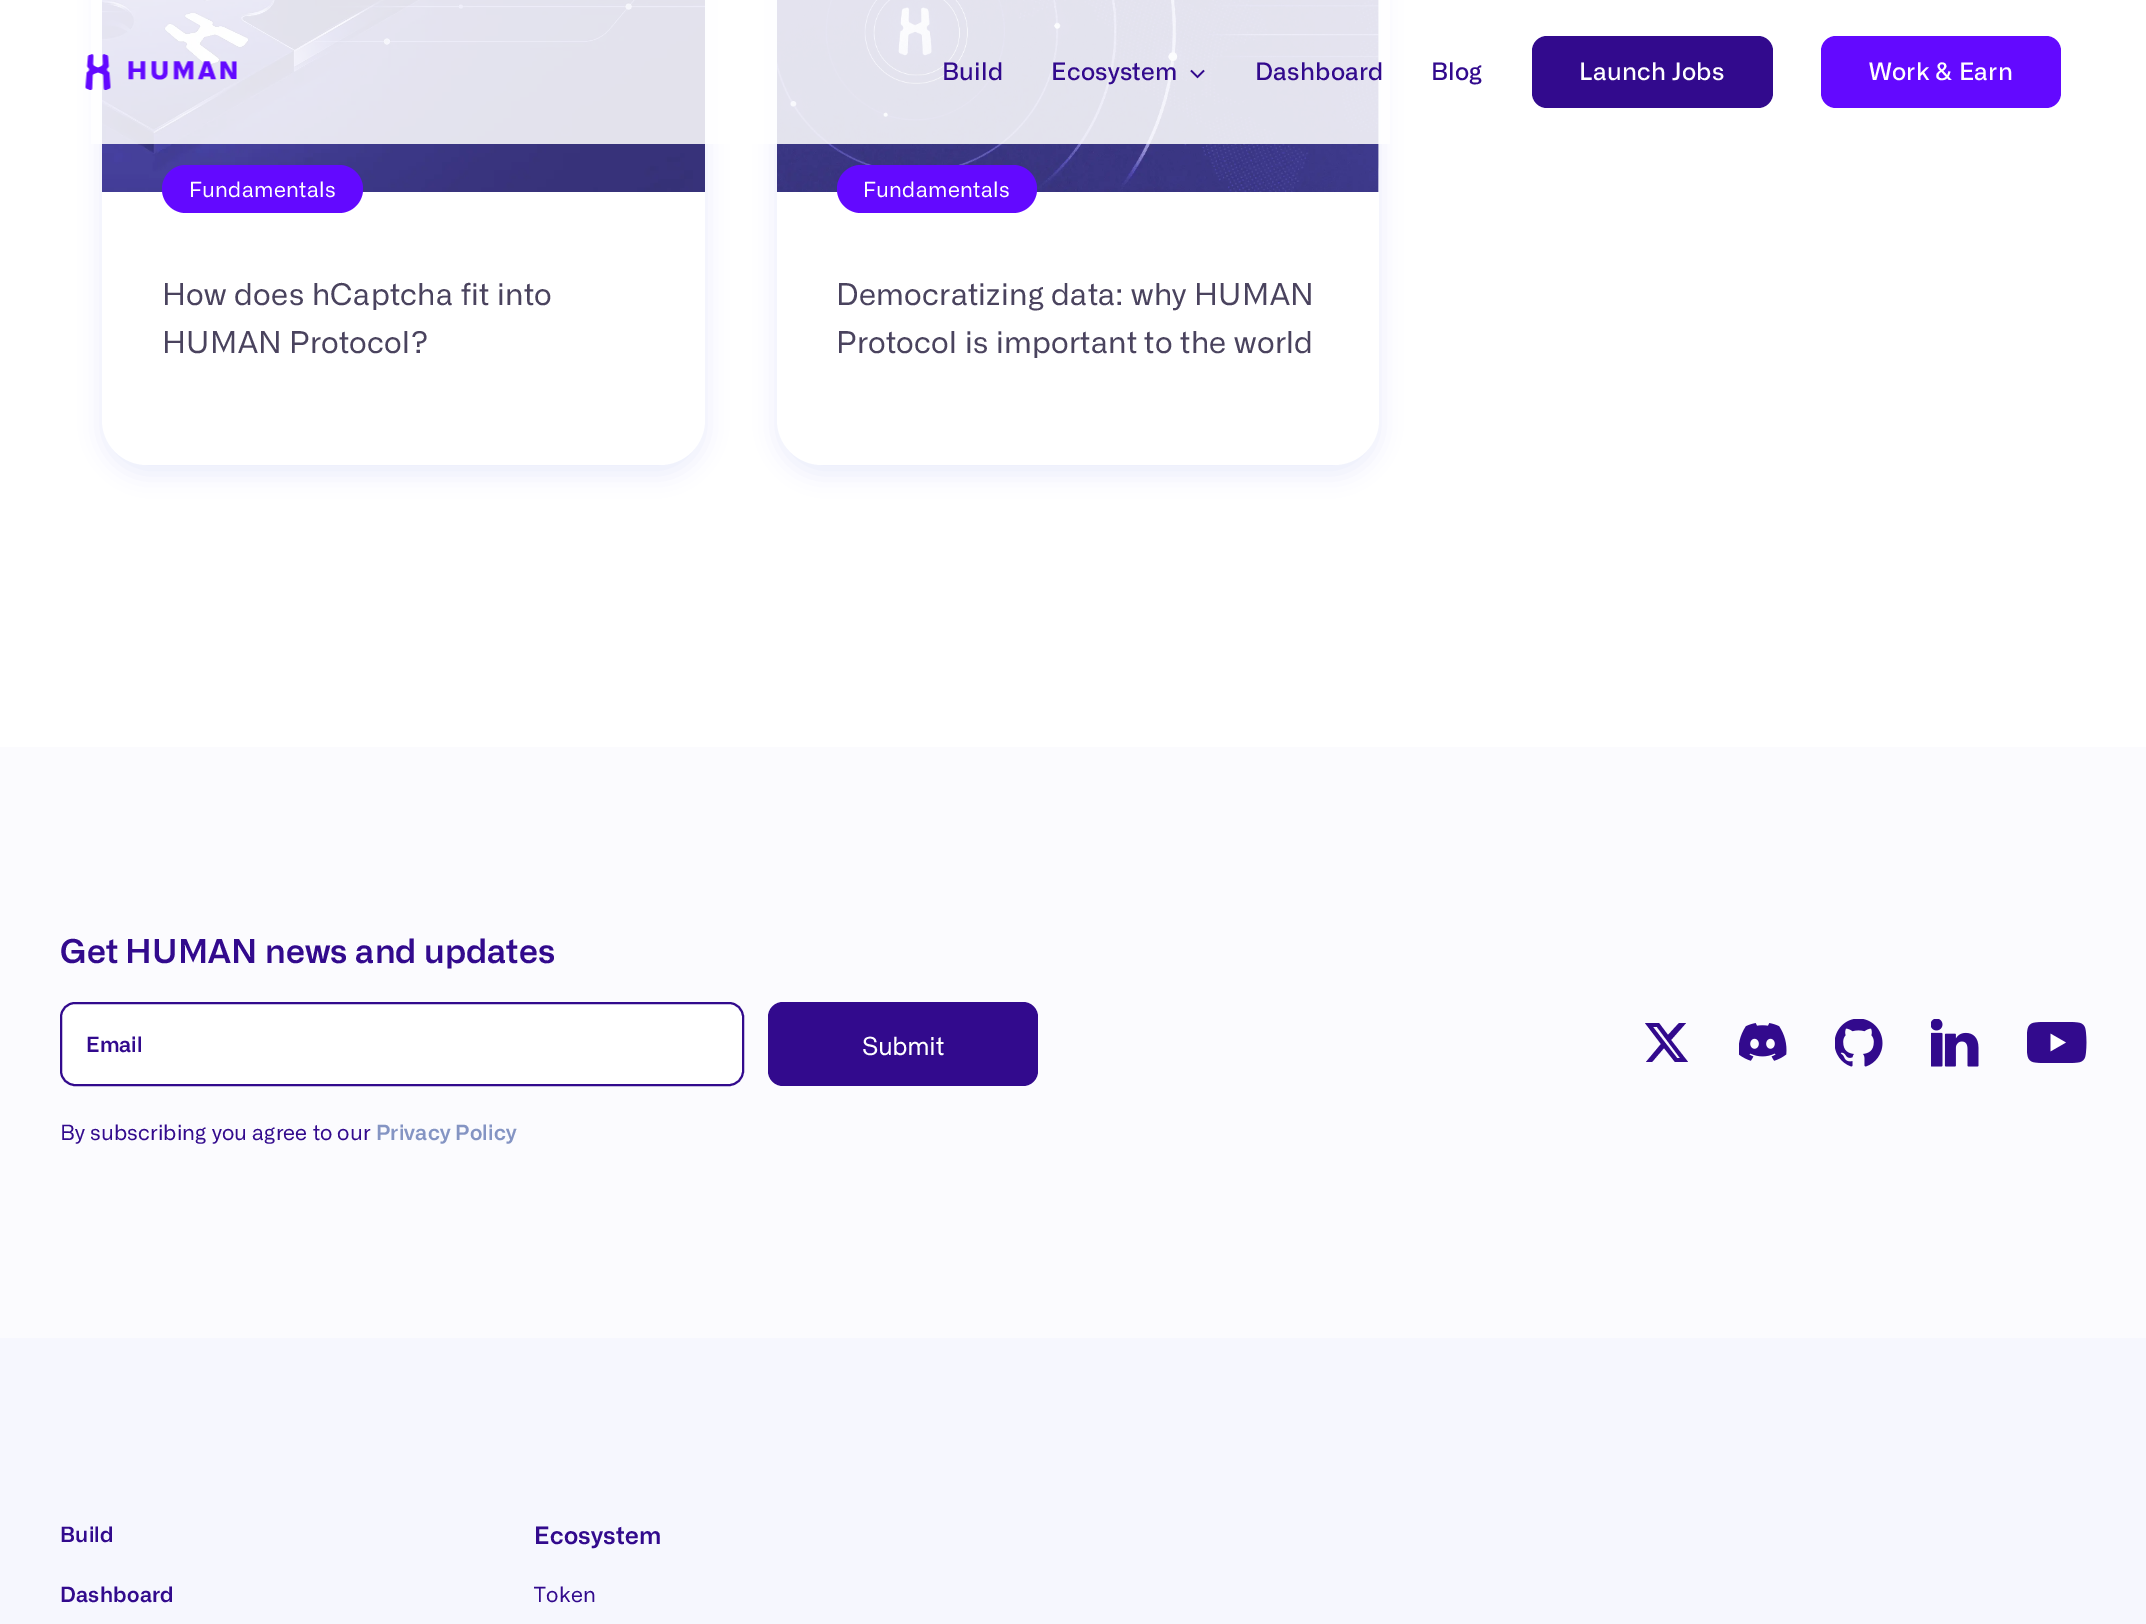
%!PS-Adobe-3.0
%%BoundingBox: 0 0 2146 1624
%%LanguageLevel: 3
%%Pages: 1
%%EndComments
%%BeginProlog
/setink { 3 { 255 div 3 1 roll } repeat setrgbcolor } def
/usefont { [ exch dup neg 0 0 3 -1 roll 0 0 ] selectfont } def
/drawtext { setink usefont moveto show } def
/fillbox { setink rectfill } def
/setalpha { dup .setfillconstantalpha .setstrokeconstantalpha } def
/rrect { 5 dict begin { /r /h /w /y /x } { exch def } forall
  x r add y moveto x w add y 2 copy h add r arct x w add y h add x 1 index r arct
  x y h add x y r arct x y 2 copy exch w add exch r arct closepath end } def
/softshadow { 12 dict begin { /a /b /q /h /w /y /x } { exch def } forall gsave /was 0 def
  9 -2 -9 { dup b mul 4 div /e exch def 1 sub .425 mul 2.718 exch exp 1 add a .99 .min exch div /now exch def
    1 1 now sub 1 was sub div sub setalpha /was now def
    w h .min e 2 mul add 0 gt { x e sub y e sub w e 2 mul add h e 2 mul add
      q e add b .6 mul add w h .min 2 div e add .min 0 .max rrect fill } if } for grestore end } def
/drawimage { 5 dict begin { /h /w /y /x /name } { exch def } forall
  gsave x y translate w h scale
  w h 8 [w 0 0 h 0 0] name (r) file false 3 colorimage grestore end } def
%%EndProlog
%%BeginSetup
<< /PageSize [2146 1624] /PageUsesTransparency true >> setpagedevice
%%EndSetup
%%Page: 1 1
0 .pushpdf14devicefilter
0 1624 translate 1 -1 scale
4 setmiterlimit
0 0 2146 1624 255 255 255 fillbox
12 32 212 setink
102 -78 603 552 45 11 0.08 softshadow
255 255 255 setink
102 -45 603 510 45 rrect fill
(assets/img2.rgb) 102 0 603 192 drawimage
12 32 212 setink
777 -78 602 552 45 11 0.08 softshadow
255 255 255 setink
777 -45 602 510 45 rrect fill
(assets/img3.rgb) 1378 0 1 192 drawimage
(assets/img4.rgb) 777 0 602 192 drawimage
0.86 setalpha
91 0 1299 144 255 255 255 fillbox
1 setalpha
(assets/img1.rgb) 85 54 152 36 drawimage
/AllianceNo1-Medium 24 usefont
50 10 141 setink
942 80 moveto 0.3 0 (Build) ashow
1051 80 moveto 0.3 0 (Ecosystem) ashow
1.5 setlinewidth
1191 70.5 moveto 1197.5 77 lineto 1204 70.5 lineto stroke
1255 80 moveto 0.3 0 (Dashboard) ashow
1431 80 moveto 0.3 0 (Blog) ashow
1532 36 241 72 15 rrect fill
255 255 255 setink
1579 80 moveto 0.3 0 (Launch Jobs) ashow
99 9 255 setink
1821 36 240 72 15 rrect fill
255 255 255 setink
1869 80 moveto 0.3 0 (Work & Earn) ashow
99 9 255 setink
162 165 201 48 24 rrect fill
/AllianceNo1-Regular 21 usefont
255 255 255 setink
189 197 moveto 0.3 0 (Fundamentals) ashow
/AllianceNo1-Regular 30 usefont
74 67 94 setink
162 305 moveto 0.3 0 (How does hCaptcha fit into) ashow
162 353 moveto 0.3 0 (HUMAN Protocol?) ashow
99 9 255 setink
837 165 200 48 24 rrect fill
/AllianceNo1-Regular 21 usefont
255 255 255 setink
863 197 moveto 0.3 0 (Fundamentals) ashow
/AllianceNo1-Regular 30 usefont
74 67 94 setink
836 305 moveto 0.3 0 (Democratizing data: why HUMAN) ashow
836 353 moveto 0.3 0 (Protocol is important to the world) ashow
0 747 2146 591 251 251 254 fillbox
/AllianceNo1-SemiBold 33 usefont
50 10 141 setink
60 963 moveto 0.15 0 (Get HUMAN news and updates) ashow
255 255 255 setink
61 1003 682 82 14 rrect gsave fill grestore
50 10 141 setink
2 setlinewidth
stroke
(Email) 86 1052 /AllianceNo1-SemiBold 21 50 10 141 drawtext
768 1002 270 84 15 rrect fill
(Submit) 862 1055 /AllianceNo1-Bold 24 255 255 255 drawtext
/AllianceNo1-Regular 21 usefont
50 10 141 setink
60 1140 moveto 0.15 0 (By subscribing you agree to our) ashow
/AllianceNo1-SemiBold 21 usefont
132 148 195 setink
376 1140 moveto 0.15 0 (Privacy Policy) ashow
50 10 141 setink
1679 1023 moveto 1686 1023 lineto 1671 1040 lineto 1688 1062 lineto 1675 1062 lineto 1664 1048 lineto 1652 1062 lineto 1646 1062 lineto 1661 1044 lineto 1645 1023 lineto 1659 1023 lineto 1668 1035 lineto closepath 1677 1058 moveto 1680 1058 lineto 1657 1027 lineto 1653 1027 lineto closepath fill
(assets/img5.rgb) 1739 1023 48 38 drawimage
(assets/img6.rgb) 1835 1019 48 48 drawimage
(assets/img7.rgb) 1931 1019 48 48 drawimage
(assets/img8.rgb) 2027 1022 60 41 drawimage
0 1338 2146 286 246 247 254 fillbox
50 10 141 setink
60 1542 moveto 0.3 0 (Build) ashow
60 1602 moveto 0.3 0 (Dashboard) ashow
/AllianceNo1-SemiBold 24 usefont
534 1544 moveto 0.3 0 (Ecosystem) ashow
/AllianceNo1-Regular 21 usefont
534 1602 moveto 0.3 0 (Token) ashow
.poppdf14devicefilter showpage
%%EOF
